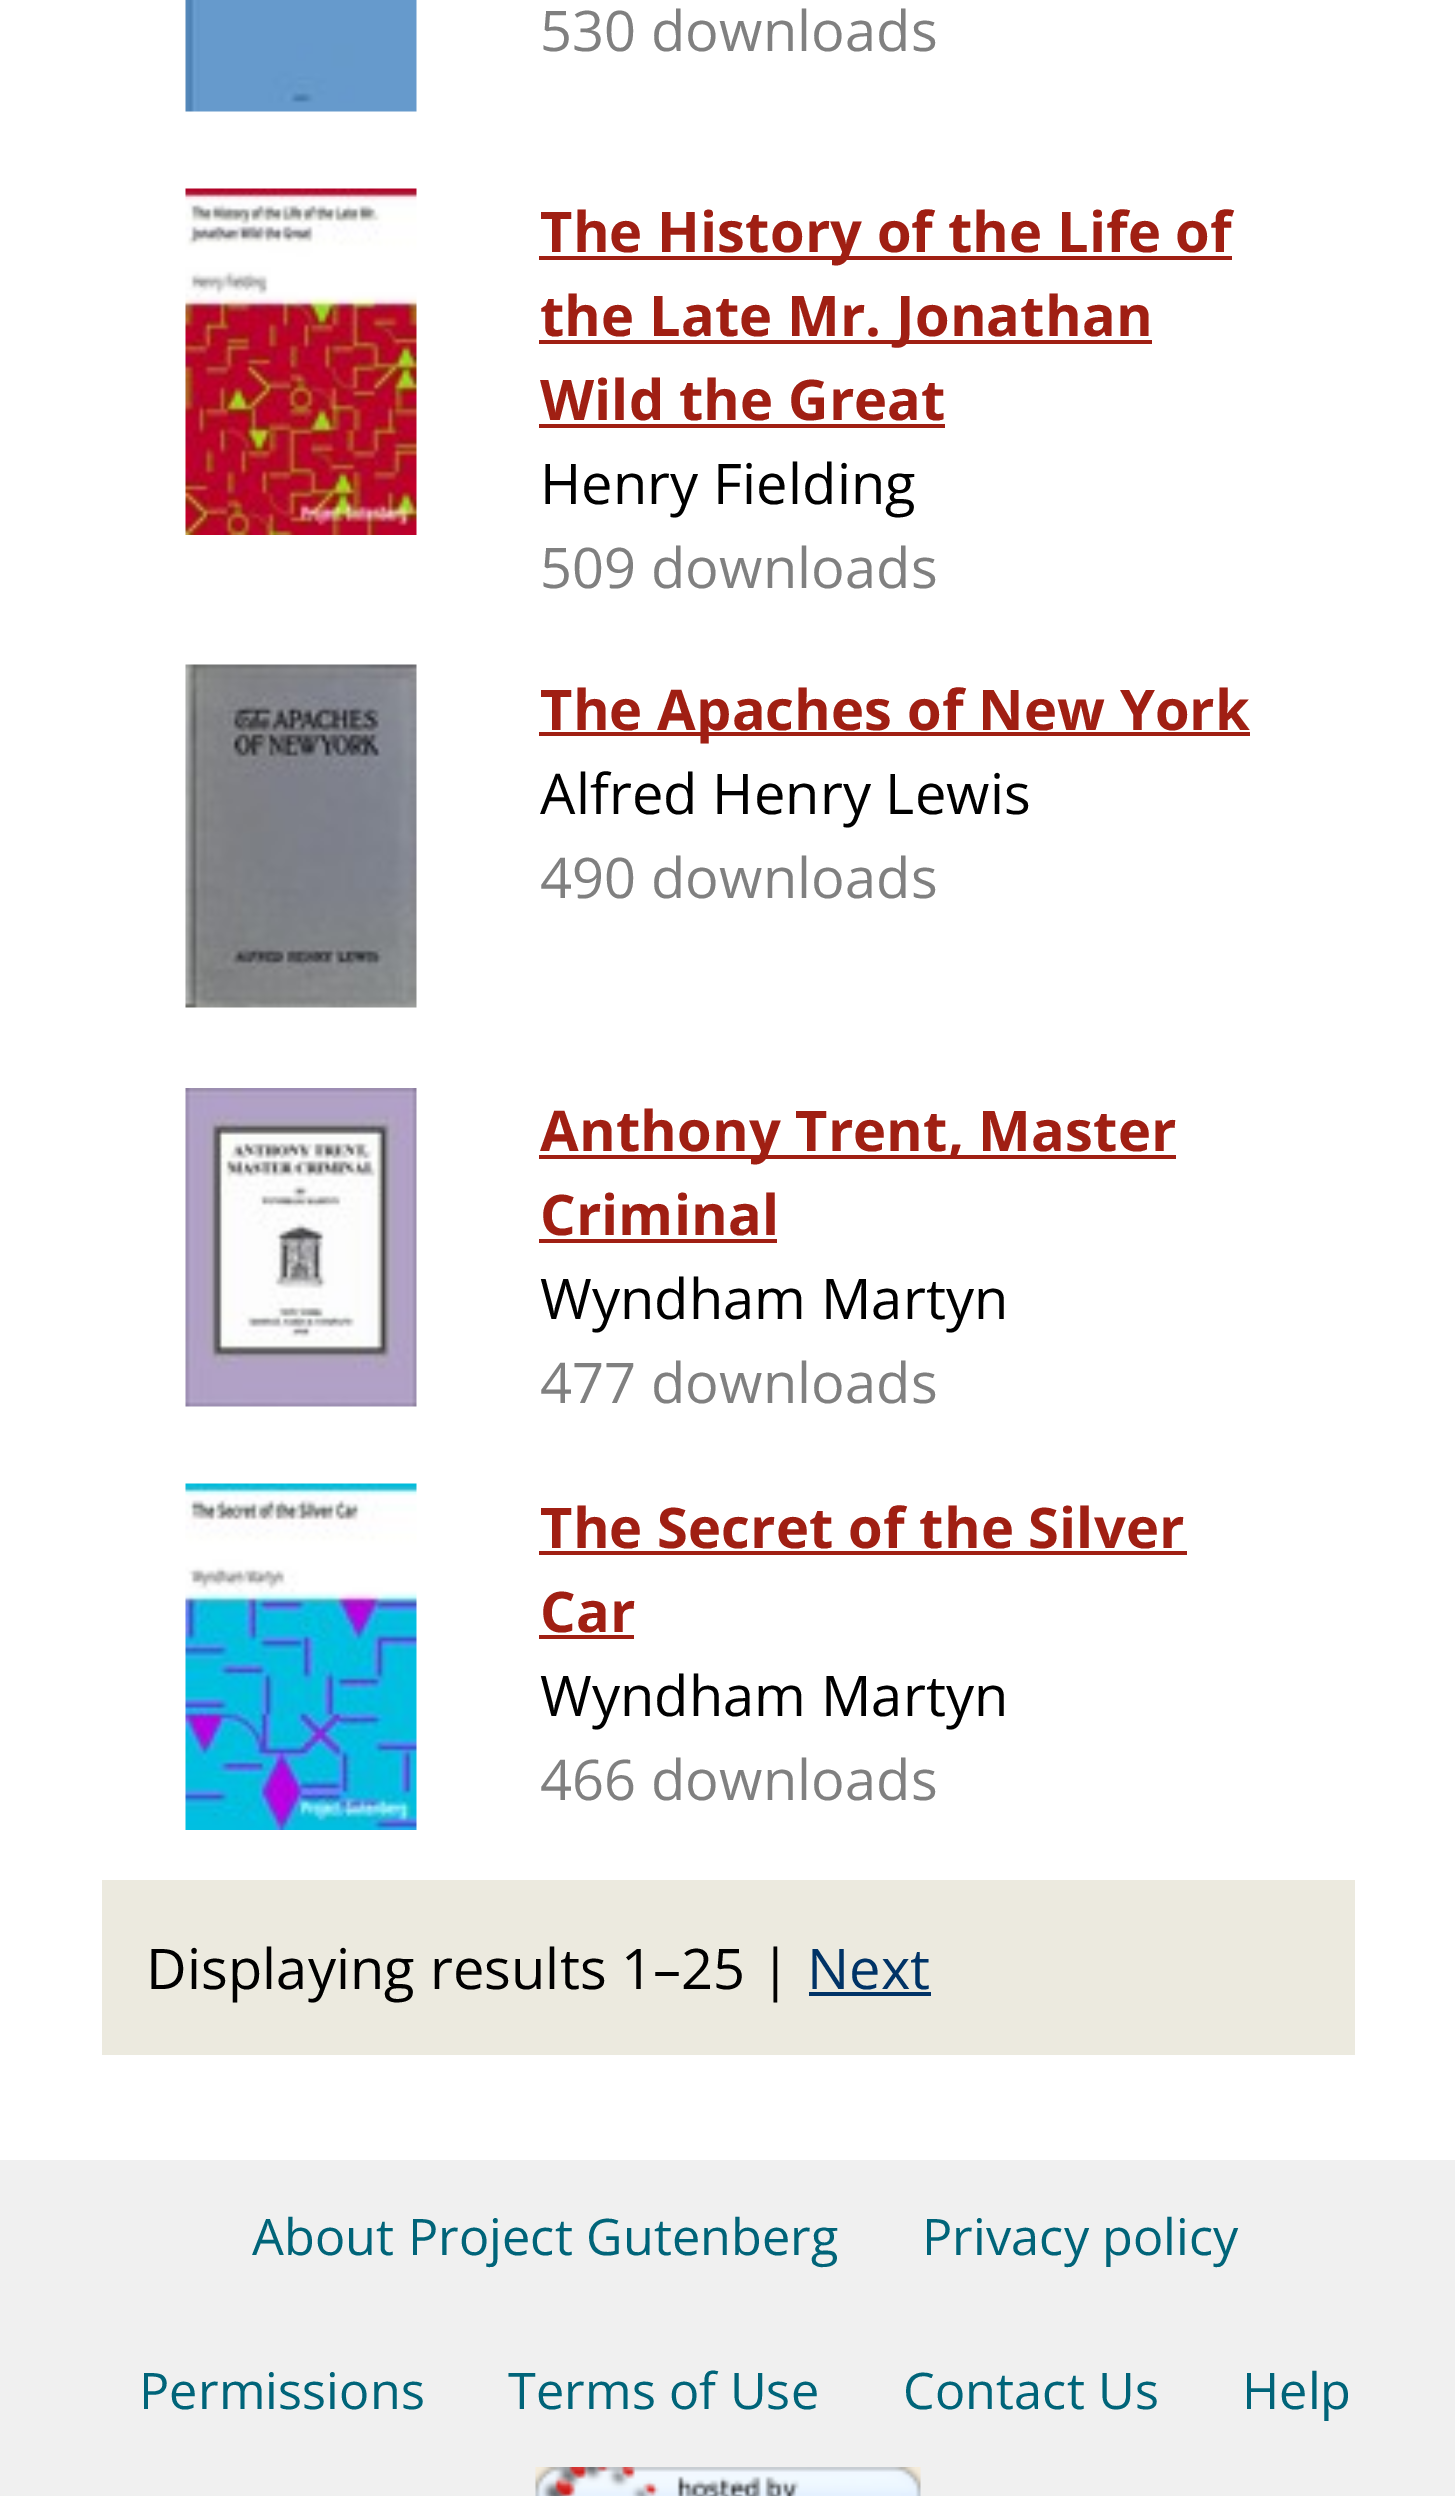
%!PS-Adobe-3.0
%%BoundingBox: 0 0 1455 2496
%%LanguageLevel: 3
%%Pages: 1
%%EndComments
%%BeginProlog
/setink { 3 { 255 div 3 1 roll } repeat setrgbcolor } def
/usefont { [ exch dup neg 0 0 3 -1 roll 0 0 ] selectfont } def
/fillbox { setink rectfill } def
/drawimage { 5 dict begin { /h /w /y /x /name } { exch def } forall
  gsave x y translate w h scale
  w h 8 [w 0 0 h 0 0] name (r) file false 3 colorimage grestore end } def
%%EndProlog
%%BeginSetup
<< /PageSize [1455 2496] >> setpagedevice
%%EndSetup
%%Page: 1 1
0 2496 translate 1 -1 scale
4 setmiterlimit
0 0 1455 2496 255 255 255 fillbox
(assets/img1.rgb) 185 0 232 112 drawimage
/OpenSans-Regular 56 usefont
128 128 128 setink
540 51 moveto 0.1 0 (530 downloads) ashow
(assets/img2.rgb) 185 188 232 347 drawimage
539 256 693 4 160 31 19 fillbox
/OpenSans-Bold 56 usefont
540 252 moveto 0.1 0 (The History of the Life of) ashow
539 340 613 4 160 31 19 fillbox
540 336 moveto 0.1 0 (the Late Mr. Jonathan) ashow
540 420 moveto 0.1 0 (Wild the Great) ashow
539 424 406 4 160 31 19 fillbox
/OpenSans-Regular 56 usefont
0 0 0 setink
540 504 moveto 0.1 0 (Henry Fielding) ashow
128 128 128 setink
540 588 moveto 0.1 0 (509 downloads) ashow
(assets/img3.rgb) 185 664 232 344 drawimage
539 732 711 4 160 31 19 fillbox
/OpenSans-Bold 56 usefont
540 730 moveto 0.1 0 (The Apaches of New York) ashow
/OpenSans-Regular 56 usefont
0 0 0 setink
540 814 moveto 0.1 0 (Alfred Henry Lewis) ashow
128 128 128 setink
540 898 moveto 0.1 0 (490 downloads) ashow
(assets/img4.rgb) 185 1088 232 319 drawimage
539 1155 637 4 160 31 19 fillbox
/OpenSans-Bold 56 usefont
540 1151 moveto 0.1 0 (Anthony Trent, Master) ashow
540 1235 moveto 0.1 0 (Criminal) ashow
539 1239 238 4 160 31 19 fillbox
/OpenSans-Regular 56 usefont
0 0 0 setink
540 1319 moveto 0.1 0 (Wyndham Martyn) ashow
128 128 128 setink
540 1403 moveto 0.1 0 (477 downloads) ashow
(assets/img5.rgb) 185 1483 232 347 drawimage
/OpenSans-Bold 56 usefont
160 31 19 setink
540 1548 moveto 0.1 0 (The Secret of the Silver) ashow
539 1551 648 4 160 31 19 fillbox
540 1632 moveto 0.1 0 (Car) ashow
539 1635 95 4 160 31 19 fillbox
/OpenSans-Regular 56 usefont
0 0 0 setink
540 1716 moveto 0.1 0 (Wyndham Martyn) ashow
128 128 128 setink
540 1800 moveto 0.1 0 (466 downloads) ashow
102 1880 1253 175 236 234 223 fillbox
0 0 0 setink
146 1989 moveto 0.1 0 (Displaying results 1–25 |) ashow
0 51 102 setink
807 1989 moveto 0.1 0 (Next) ashow
809 1992 122 4 0 51 102 fillbox
0 2160 1455 336 240 240 240 fillbox
/OpenSans-Regular 50.4 usefont
0 100 121 setink
252 2255 moveto 0.1 0 (About Project Gutenberg) ashow
922 2255 moveto 0.1 0 (Privacy policy) ashow
139 2409 moveto 0.1 0 (Permissions) ashow
508 2409 moveto 0.1 0 (Terms of Use) ashow
903 2409 moveto 0.1 0 (Contact Us) ashow
1242 2409 moveto 0.1 0 (Help) ashow
(assets/img6.rgb) 535 2467 386 29 drawimage
showpage
%%EOF
